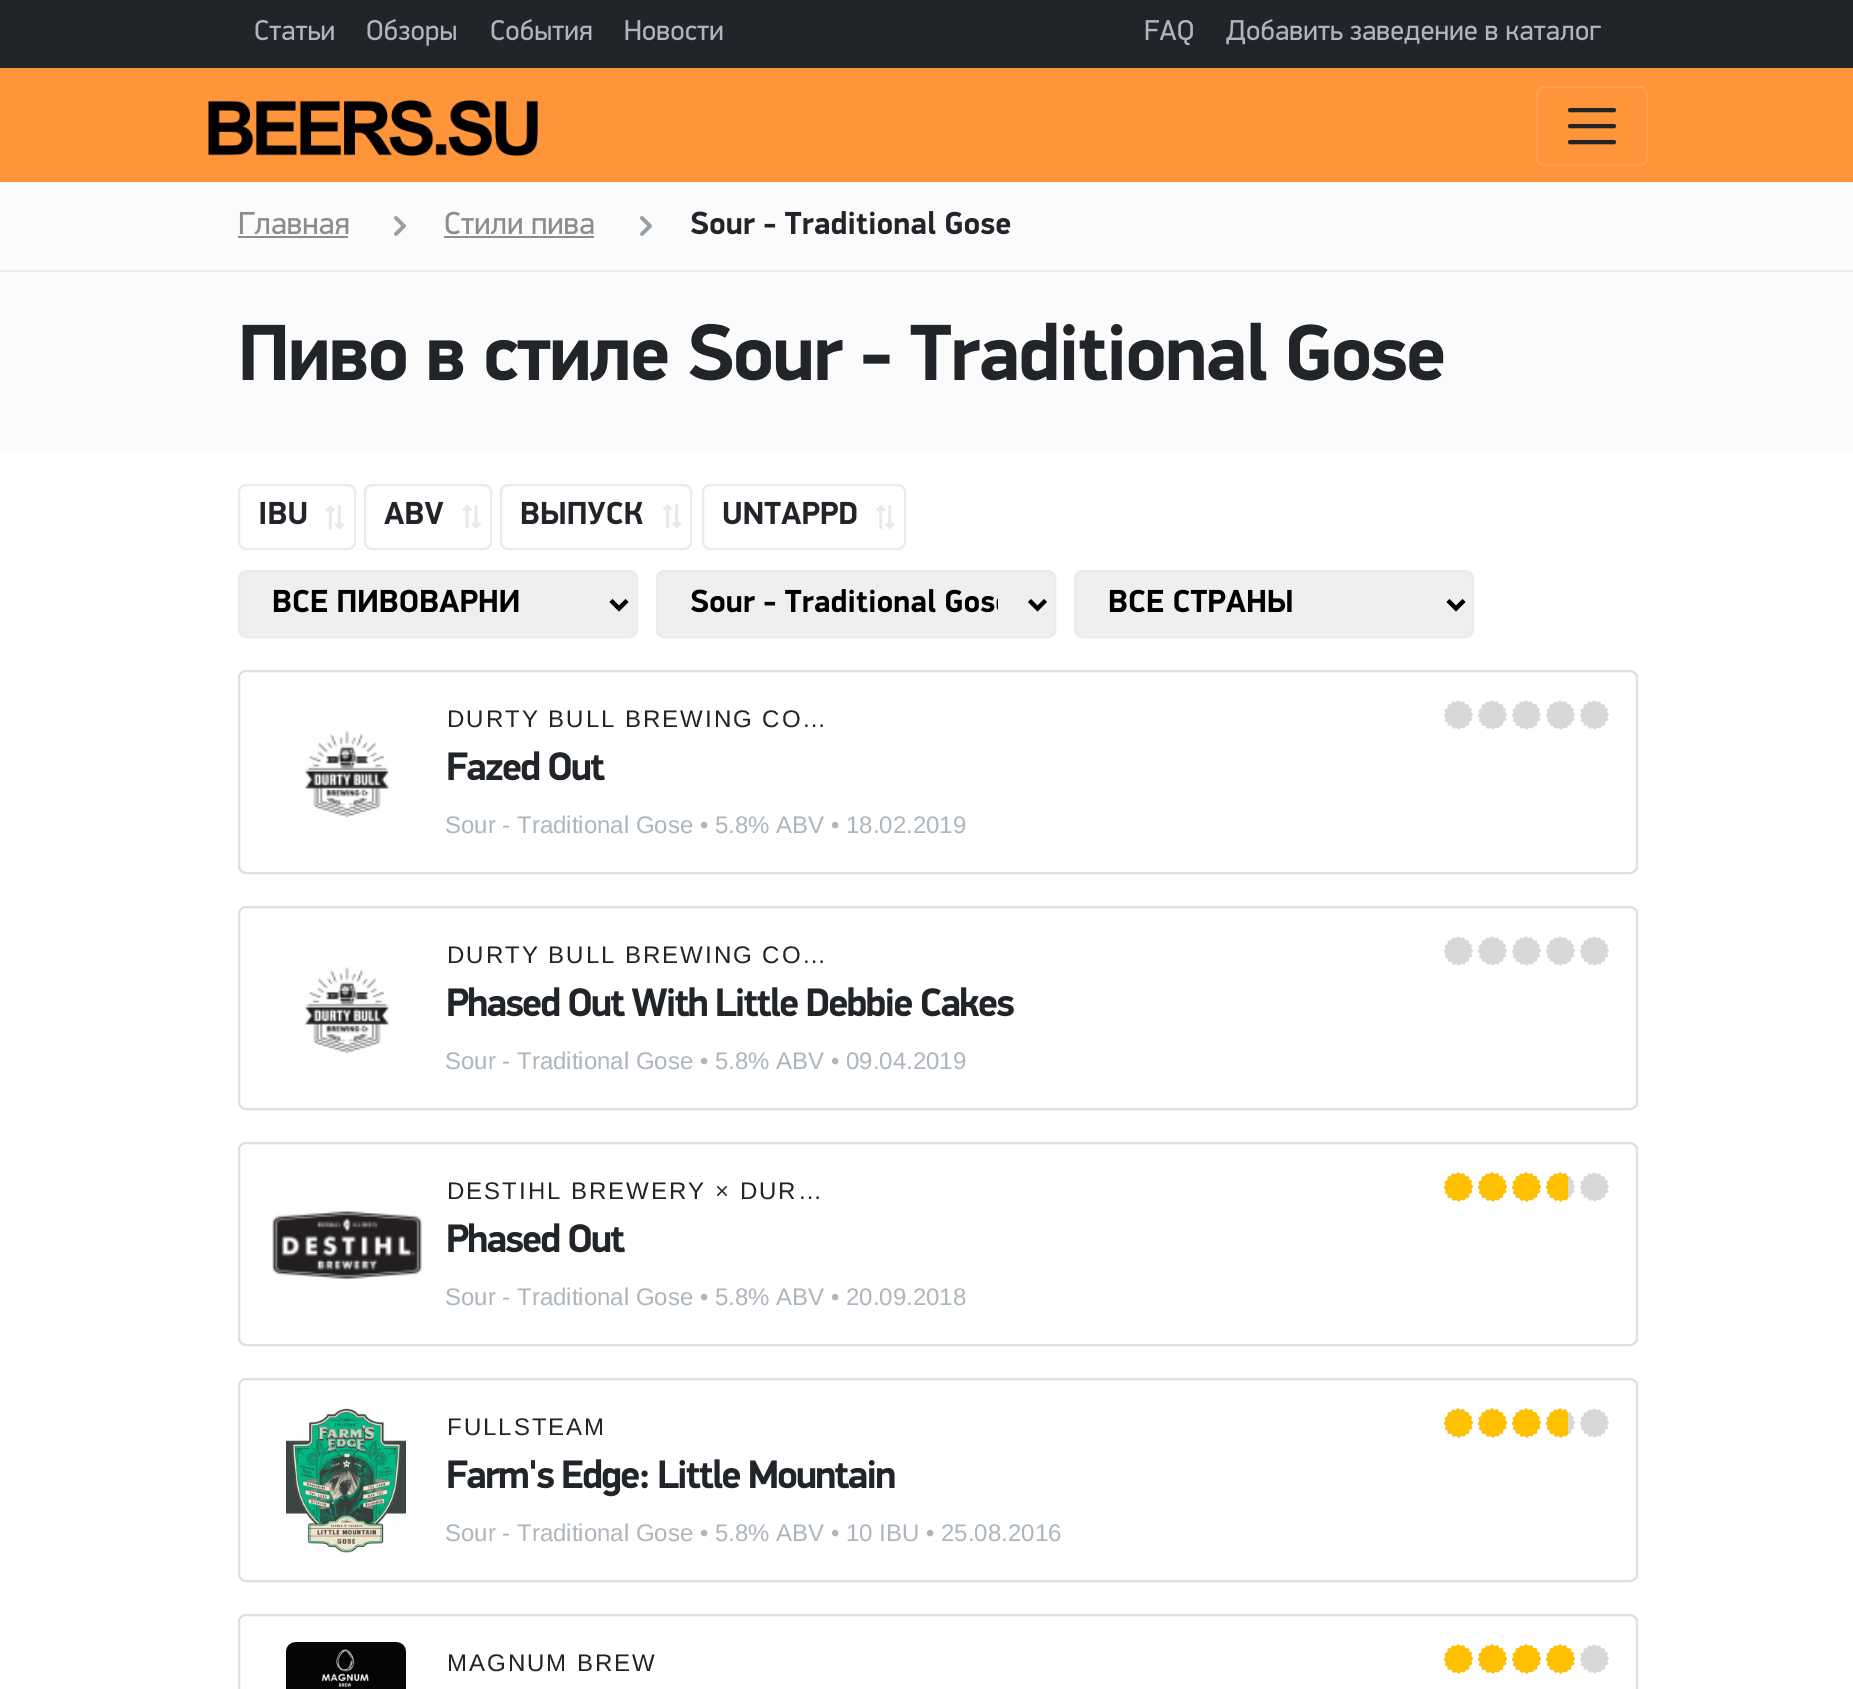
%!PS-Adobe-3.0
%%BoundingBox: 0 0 1853 1689
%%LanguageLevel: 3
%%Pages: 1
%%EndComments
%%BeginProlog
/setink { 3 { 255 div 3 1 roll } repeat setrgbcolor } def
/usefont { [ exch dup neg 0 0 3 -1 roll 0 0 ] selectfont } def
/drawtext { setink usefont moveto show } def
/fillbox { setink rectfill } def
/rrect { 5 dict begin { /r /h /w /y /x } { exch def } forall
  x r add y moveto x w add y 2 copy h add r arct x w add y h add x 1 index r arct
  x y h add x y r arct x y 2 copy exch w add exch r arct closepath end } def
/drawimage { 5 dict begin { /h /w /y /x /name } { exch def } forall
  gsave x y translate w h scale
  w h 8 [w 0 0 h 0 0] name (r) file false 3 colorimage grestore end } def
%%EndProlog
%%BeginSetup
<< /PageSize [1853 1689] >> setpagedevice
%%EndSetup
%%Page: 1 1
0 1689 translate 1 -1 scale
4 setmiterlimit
0 0 1853 1689 255 255 255 fillbox
0 0 1853 68 33 37 41 fillbox
(assets/img1.rgb) 255 20 79 21 drawimage
(assets/img2.rgb) 367 19 89 27 drawimage
(assets/img3.rgb) 491 19 101 22 drawimage
(assets/img4.rgb) 625 20 98 21 drawimage
(assets/img5.rgb) 1145 20 48 26 drawimage
(assets/img6.rgb) 1226 19 375 26 drawimage
0 68 1853 114 255 149 58 fillbox
(assets/img7.rgb) 208 100 330 56 drawimage
255 160 78 setink
2 setlinewidth
1537 87 110 78 7 rrect stroke
33 37 41 setink
4 setlinewidth
1 setlinecap
1570 110 moveto 1614 110 lineto 1570 126 moveto 1614 126 lineto 1570 142 moveto 1614 142 lineto stroke
0 182 1853 88 251 251 251 fillbox
0 270 1853 2 238 238 238 fillbox
(assets/img8.rgb) 239 211 110 24 drawimage
(assets/img9.rgb) 394 216 12 20 drawimage
238 236 110 2 140 140 140 fillbox
(assets/img10.rgb) 445 211 149 24 drawimage
(assets/img9.rgb) 640 216 12 20 drawimage
444 236 150 2 140 140 140 fillbox
(assets/img11.rgb) 691 211 320 24 drawimage
0 272 1853 180 251 251 251 fillbox
(assets/img12.rgb) 242 322 1202 59 drawimage
233 236 239 setink
2 setlinewidth
0 setlinecap
239 485 116 64 7 rrect stroke
(assets/img13.rgb) 260 501 47 24 drawimage
(assets/img14.rgb) 325 505 19 25 drawimage
365 485 126 64 7 rrect stroke
(assets/img15.rgb) 384 501 60 23 drawimage
(assets/img16.rgb) 462 504 19 25 drawimage
501 485 190 64 7 rrect stroke
(assets/img17.rgb) 521 501 122 24 drawimage
(assets/img18.rgb) 663 504 19 24 drawimage
703 485 202 64 7 rrect stroke
(assets/img19.rgb) 723 501 134 24 drawimage
(assets/img20.rgb) 876 505 19 24 drawimage
239 239 239 setink
239 571 398 66 7 rrect gsave fill grestore
233 236 239 setink
stroke
0 0 0 setink
4 setlinewidth
611 600.5 moveto 619 608.5 lineto 627 600.5 lineto stroke
(assets/img21.rgb) 273 589 246 24 drawimage
239 239 239 setink
657 571 398 66 7 rrect gsave fill grestore
233 236 239 setink
2 setlinewidth
stroke
0 0 0 setink
4 setlinewidth
1029.5 600.5 moveto 1037.5 608.5 lineto 1045.5 600.5 lineto stroke
(assets/img22.rgb) 691 589 307 24 drawimage
239 239 239 setink
1075 571 398 66 7 rrect gsave fill grestore
233 236 239 setink
2 setlinewidth
stroke
0 0 0 setink
4 setlinewidth
1448 600.5 moveto 1456 608.5 lineto 1464 600.5 lineto stroke
(assets/img23.rgb) 1109 589 183 24 drawimage
223 223 223 setink
2 setlinewidth
239 671 1398 202 7 rrect stroke
(assets/img24.rgb) 305 730 84 88 drawimage
/LiberationSans-Regular 24 usefont
33 37 41 setink
447 727 moveto 2 0 (DURTY BULL BREWING CO…) ashow
(assets/img25.rgb) 1444 700 165 30 drawimage
(assets/img26.rgb) 448 751 157 30 drawimage
(Sour - Traditional Gose • 5.8% ABV • 18.02.2019) 445 833 /LiberationSans-Regular 24 173 181 189 drawtext
223 223 223 setink
239 907 1398 202 7 rrect stroke
(assets/img24.rgb) 305 966 84 88 drawimage
33 37 41 setink
447 963 moveto 2 0 (DURTY BULL BREWING CO…) ashow
(assets/img25.rgb) 1444 936 165 30 drawimage
(assets/img27.rgb) 448 987 566 30 drawimage
(Sour - Traditional Gose • 5.8% ABV • 09.04.2019) 445 1069 /LiberationSans-Regular 24 173 181 189 drawtext
223 223 223 setink
239 1143 1398 202 7 rrect stroke
(assets/img28.rgb) 272 1211 150 70 drawimage
33 37 41 setink
447 1199 moveto 2 0 (DESTIHL BREWERY × DUR…) ashow
(assets/img25.rgb) 1444 1172 165 30 drawimage
(assets/img29.rgb) 1444 1172 124 30 drawimage
(assets/img30.rgb) 448 1223 177 30 drawimage
(Sour - Traditional Gose • 5.8% ABV • 20.09.2018) 445 1305 /LiberationSans-Regular 24 173 181 189 drawtext
223 223 223 setink
239 1379 1398 202 7 rrect stroke
(assets/img31.rgb) 286 1408 120 145 drawimage
33 37 41 setink
447 1435 moveto 2 0 (FULLSTEAM) ashow
(assets/img25.rgb) 1444 1408 165 30 drawimage
(assets/img29.rgb) 1444 1408 124 30 drawimage
(assets/img32.rgb) 448 1459 447 38 drawimage
(Sour - Traditional Gose • 5.8% ABV • 10 IBU • 25.08.2016) 445 1541 /LiberationSans-Regular 24 173 181 189 drawtext
223 223 223 setink
239 1615 1398 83 7 rrect stroke
(assets/img33.rgb) 286 1642 120 47 drawimage
33 37 41 setink
447 1671 moveto 2 0 (MAGNUM BREW) ashow
(assets/img25.rgb) 1444 1644 165 30 drawimage
(assets/img34.rgb) 1444 1644 131 30 drawimage
showpage
%%EOF
